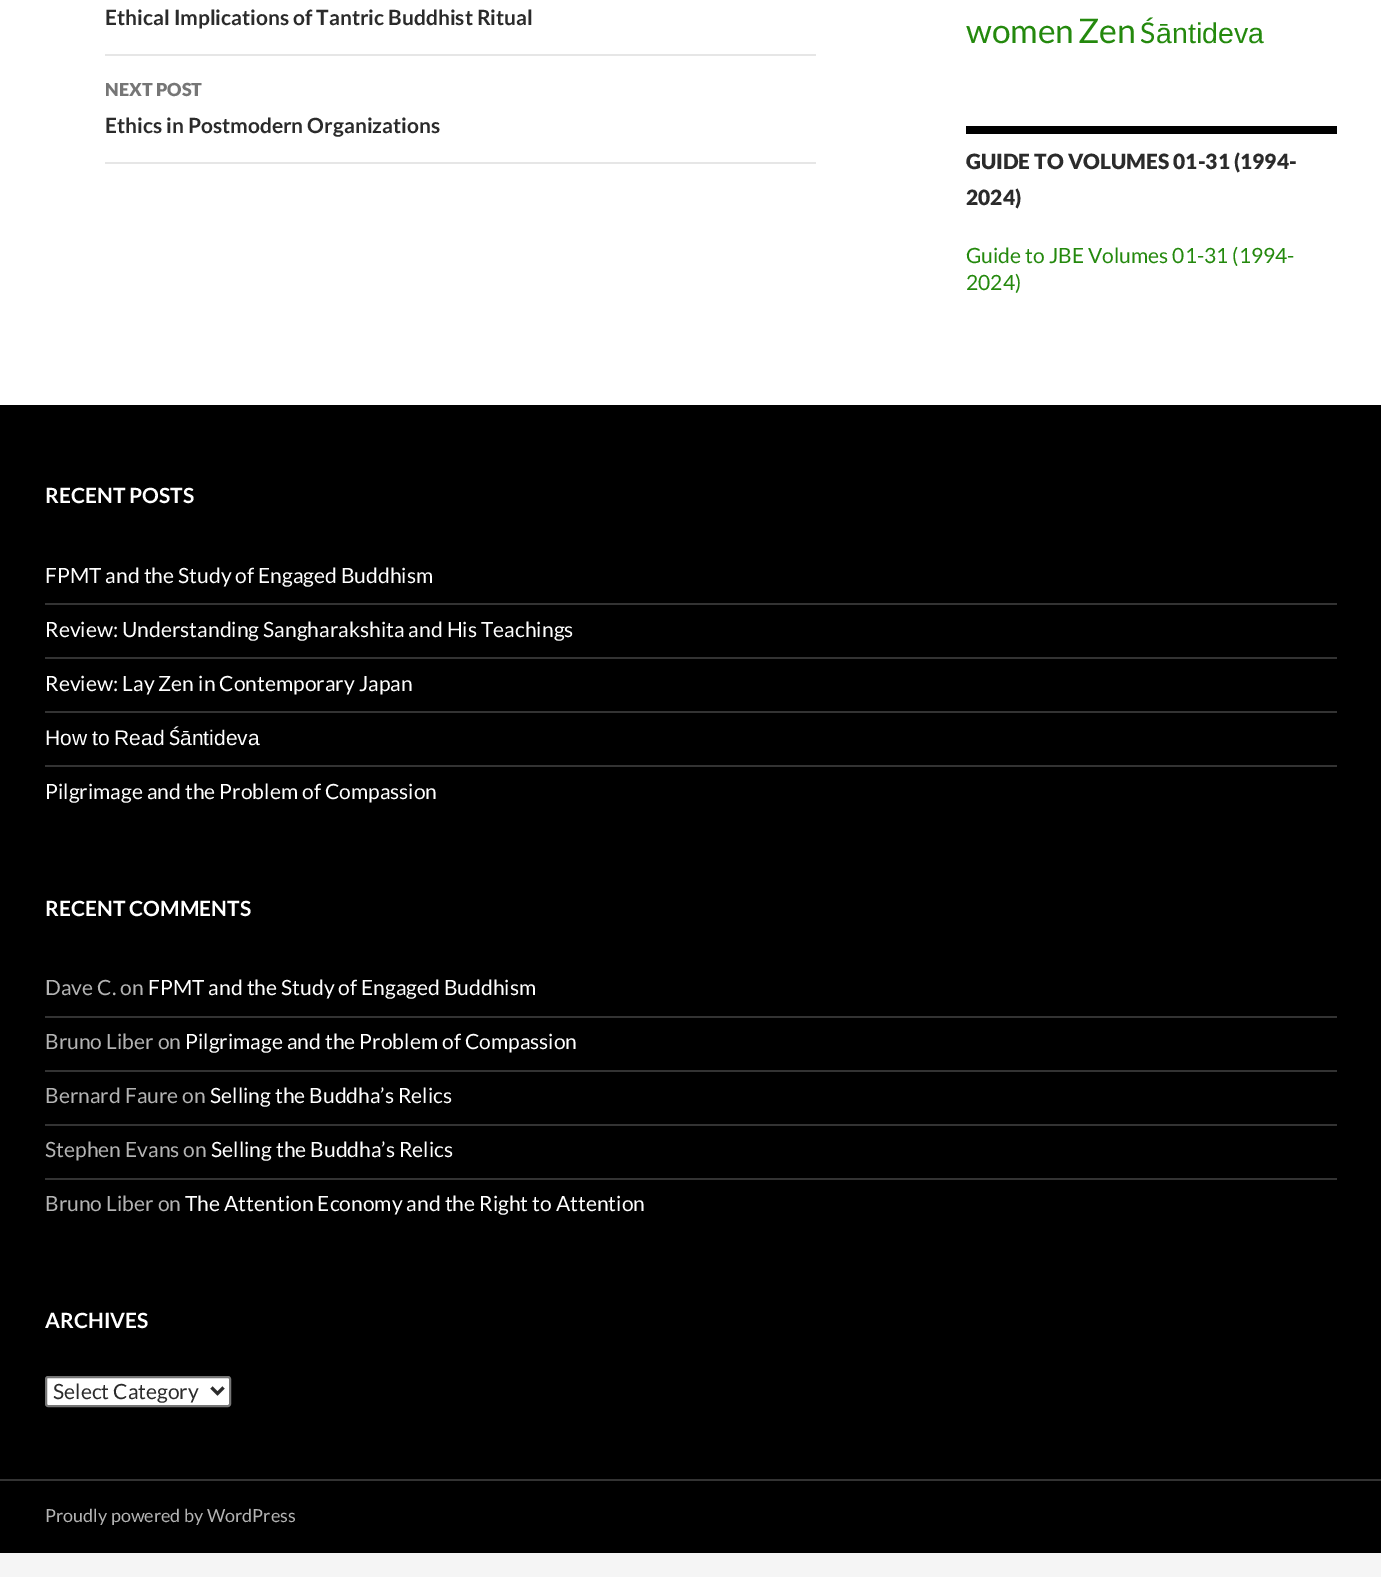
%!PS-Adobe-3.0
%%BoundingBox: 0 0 1381 1577
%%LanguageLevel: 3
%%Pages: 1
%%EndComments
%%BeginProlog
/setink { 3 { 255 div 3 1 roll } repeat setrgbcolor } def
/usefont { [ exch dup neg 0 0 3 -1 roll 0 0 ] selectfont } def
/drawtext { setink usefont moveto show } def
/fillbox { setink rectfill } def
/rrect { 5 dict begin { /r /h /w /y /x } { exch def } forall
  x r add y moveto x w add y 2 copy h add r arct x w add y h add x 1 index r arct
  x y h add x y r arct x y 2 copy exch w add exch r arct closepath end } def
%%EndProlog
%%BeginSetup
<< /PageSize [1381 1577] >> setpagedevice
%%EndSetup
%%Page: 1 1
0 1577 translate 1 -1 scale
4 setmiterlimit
0 0 1381 1577 245 245 245 fillbox
0 0 1381 405 255 255 255 fillbox
105 54 711 2 230 230 230 fillbox
(Ethical Implications of Tantric Buddhist Ritual) 105 25 /Lato-Bold 21 43 43 43 drawtext
105 162 711 2 230 230 230 fillbox
(NEXT POST) 105 96 /Lato-Black 18 118 118 118 drawtext
(Ethics in Postmodern Organizations) 105 133 /Lato-Bold 21 43 43 43 drawtext
(women) 966 43 /Lato-Regular 33.5 36 137 13 drawtext
(Zen) 1078 43 /Lato-Regular 34 36 137 13 drawtext
(Ś) 1140 43 /Lato-Regular 28.5 36 137 13 drawtext
(āntideva) 1156 43 /LiberationSans-Regular 28.5 36 137 13 drawtext
966 126 371 8 0 0 0 fillbox
(GUIDE TO VOLUMES 01-31 \(1994-) 966 169 /Lato-Black 21 43 43 43 drawtext
(2024\)) 966 205 /Lato-Black 21 43 43 43 drawtext
(Guide to JBE Volumes 01-31 \(1994-) 966 263 /Lato-Regular 21 36 137 13 drawtext
(2024\)) 966 290 /Lato-Regular 21 36 137 13 drawtext
0 405 1381 1074 0 0 0 fillbox
0 1479 1381 2 51 51 51 fillbox
(RECENT POSTS) 45 503 /Lato-Bold 21 255 255 255 drawtext
(FPMT and the Study of Engaged Buddhism) 45 583 /Lato-Regular 21 255 255 255 drawtext
45 603 1292 2 51 51 51 fillbox
(Review: Understanding Sangharakshita and His Teachings) 45 637 /Lato-Regular 21 255 255 255 drawtext
45 657 1292 2 51 51 51 fillbox
(Review: Lay Zen in Contemporary Japan) 45 691 /Lato-Regular 21 255 255 255 drawtext
45 711 1292 2 51 51 51 fillbox
/LiberationSans-Regular 21 usefont
255 255 255 setink
45 745 moveto -1 0 32 (How to Read) widthshow
(Ś) 169 745 /Lato-Regular 21 255 255 255 drawtext
(āntideva) 180 745 /LiberationSans-Regular 21 255 255 255 drawtext
45 765 1292 2 51 51 51 fillbox
(Pilgrimage and the Problem of Compassion) 45 799 /Lato-Regular 21 255 255 255 drawtext
(RECENT COMMENTS) 45 916 /Lato-Bold 21 255 255 255 drawtext
(Dave C. on) 45 995 /Lato-Regular 21 179 179 179 drawtext
(FPMT and the Study of Engaged Buddhism) 148 995 /Lato-Regular 21 255 255 255 drawtext
45 1016 1292 2 51 51 51 fillbox
(Bruno Liber on) 45 1049 /Lato-Regular 21 179 179 179 drawtext
(Pilgrimage and the Problem of Compassion) 185 1049 /Lato-Regular 21 255 255 255 drawtext
45 1070 1292 2 51 51 51 fillbox
(Bernard Faure on) 45 1103 /Lato-Regular 21 179 179 179 drawtext
(Selling the Buddha’s Relics) 210 1103 /Lato-Regular 21 255 255 255 drawtext
45 1124 1292 2 51 51 51 fillbox
(Stephen Evans on) 45 1157 /Lato-Regular 21 179 179 179 drawtext
(Selling the Buddha’s Relics) 211 1157 /Lato-Regular 21 255 255 255 drawtext
45 1178 1292 2 51 51 51 fillbox
(Bruno Liber on) 45 1211 /Lato-Regular 21 179 179 179 drawtext
(The Attention Economy and the Right to Attention) 185 1211 /Lato-Regular 21 255 255 255 drawtext
(ARCHIVES) 45 1328 /Lato-Bold 21 255 255 255 drawtext
46 1377 184 29 2 rrect gsave fill grestore
118 118 118 setink
2 setlinewidth
stroke
43 43 43 setink
3 setlinewidth
211.5 1387.5 moveto 217.5 1393.5 lineto 223.5 1387.5 lineto stroke
(Select Category) 53 1399 /Lato-Regular 21 43 43 43 drawtext
0 1481 1381 72 0 0 0 fillbox
(Proudly powered by WordPress) 45 1522 /Lato-Regular 18 179 179 179 drawtext
showpage
%%EOF
